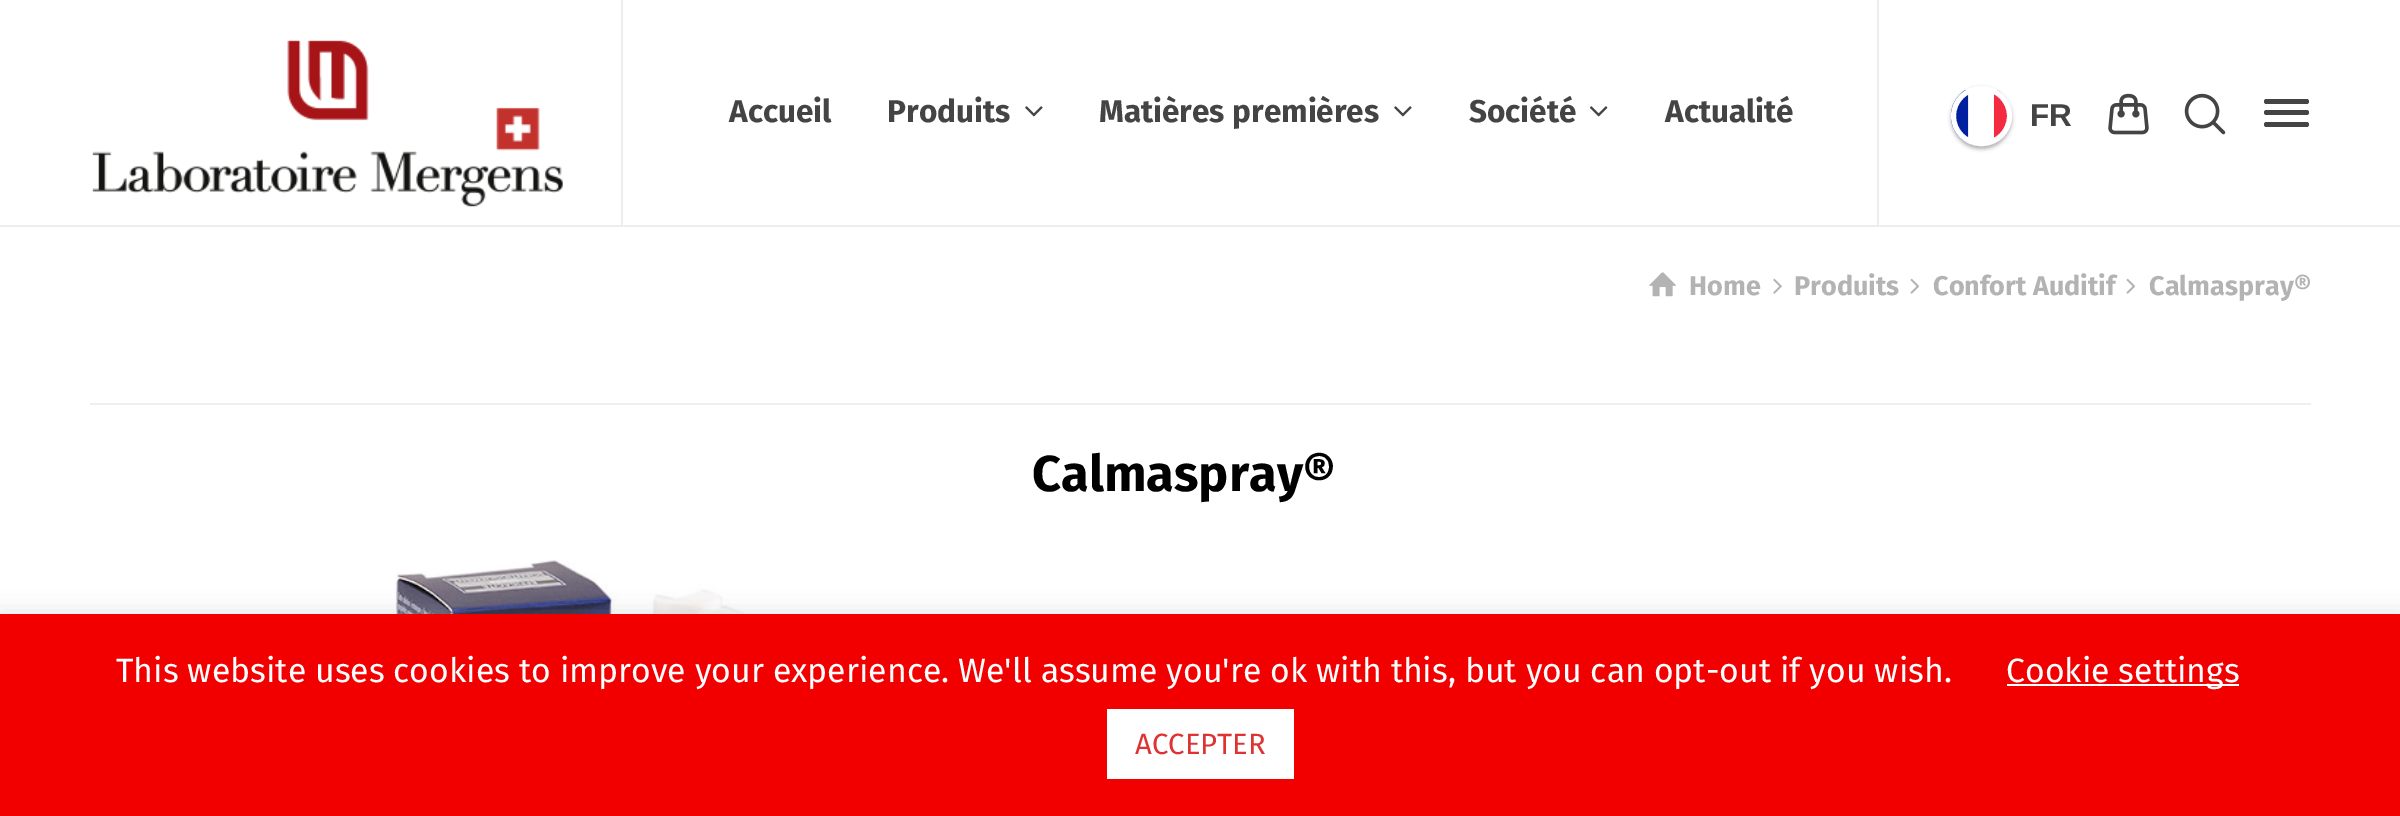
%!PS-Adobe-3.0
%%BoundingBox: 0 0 2400 816
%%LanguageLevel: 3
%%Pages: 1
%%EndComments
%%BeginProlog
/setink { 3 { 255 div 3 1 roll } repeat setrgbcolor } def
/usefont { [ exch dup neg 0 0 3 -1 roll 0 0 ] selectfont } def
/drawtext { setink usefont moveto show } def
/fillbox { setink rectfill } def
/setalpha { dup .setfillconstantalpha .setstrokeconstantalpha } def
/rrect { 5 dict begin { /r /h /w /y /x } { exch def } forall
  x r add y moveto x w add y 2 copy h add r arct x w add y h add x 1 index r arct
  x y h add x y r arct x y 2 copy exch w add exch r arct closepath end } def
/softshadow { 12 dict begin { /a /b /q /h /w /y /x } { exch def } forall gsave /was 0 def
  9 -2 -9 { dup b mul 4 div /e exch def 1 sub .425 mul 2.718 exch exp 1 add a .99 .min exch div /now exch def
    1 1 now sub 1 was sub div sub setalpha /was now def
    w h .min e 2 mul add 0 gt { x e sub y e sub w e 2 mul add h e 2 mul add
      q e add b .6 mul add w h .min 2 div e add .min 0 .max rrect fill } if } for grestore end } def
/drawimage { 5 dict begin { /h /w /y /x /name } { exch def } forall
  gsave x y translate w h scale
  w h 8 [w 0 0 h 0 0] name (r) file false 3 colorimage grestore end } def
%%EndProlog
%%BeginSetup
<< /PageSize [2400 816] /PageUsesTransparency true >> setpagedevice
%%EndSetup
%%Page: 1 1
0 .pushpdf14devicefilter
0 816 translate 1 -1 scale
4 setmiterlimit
0 0 2400 816 255 255 255 fillbox
621 0 2 225 237 237 237 fillbox
(assets/img1.rgb) 92 40 471 167 drawimage
1877 0 2 225 237 237 237 fillbox
(Accueil) 729 122 /FiraSans-Bold 31.5 68 68 68 drawtext
(Produits) 887 122 /FiraSans-Bold 31.5 68 68 68 drawtext
(assets/img2.rgb) 1025 106 18 11 drawimage
(Matières premières) 1099 122 /FiraSans-Bold 31.5 68 68 68 drawtext
(assets/img2.rgb) 1394 106 18 11 drawimage
(Société) 1469 122 /FiraSans-Bold 31.5 68 68 68 drawtext
(assets/img3.rgb) 1589 106 19 11 drawimage
(Actualité) 1665 122 /FiraSans-Bold 31.5 68 68 68 drawtext
0 0 0 setink
1951 88 61 61 30.5 2 0.3 softshadow
(assets/img4.rgb) 1950 90 62 52 drawimage
255 255 255 setink
5 setlinewidth
1953.5 88.5 56 55 27.5 rrect stroke
(FR) 2030 126 /LiberationSans-Bold 31.5 68 68 68 drawtext
(assets/img5.rgb) 2108 93 41 42 drawimage
(assets/img6.rgb) 2184 93 42 42 drawimage
2264 99 45 5 2.5 rrect fill
2264 110 45 5 2.5 rrect fill
2264 122 45 5 2.5 rrect fill
0 225 2400 2 237 237 237 fillbox
(assets/img7.rgb) 1649 272 27 25 drawimage
(Home) 1689 295 /FiraSans-Bold 27 179 179 179 drawtext
(assets/img8.rgb) 1773 278 9 16 drawimage
(Produits) 1794 295 /FiraSans-Bold 27 179 179 179 drawtext
(assets/img9.rgb) 1910 278 10 16 drawimage
(Confort Auditif) 1933 295 /FiraSans-Bold 27 179 179 179 drawtext
(assets/img9.rgb) 2126 278 10 16 drawimage
(Calmaspray®) 2149 295 /FiraSans-Bold 27 179 179 179 drawtext
90 403 2221 2 239 239 239 fillbox
(Calmaspray®) 1032 491 /FiraSans-Bold 50.5 0 0 0 drawtext
(assets/img10.rgb) 394 560 374 54 drawimage
172 171 171 setink
0 612 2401 203 0 11 0.3 softshadow
0 614 2400 202 242 0 0 fillbox
(This website uses cookies to improve your experience. We'll assume you're ok with this, but you can opt-out if you wish.) 116 682 /FiraSans-Regular 33.75 255 255 255 drawtext
2007 684 232 2 255 255 255 fillbox
(Cookie settings) 2006 682 /FiraSans-Regular 33.75 255 255 255 drawtext
1107 709 187 70 255 255 255 fillbox
(ACCEPTER) 1135 754 /FiraSans-Regular 29.25 221 51 51 drawtext
.poppdf14devicefilter showpage
%%EOF
